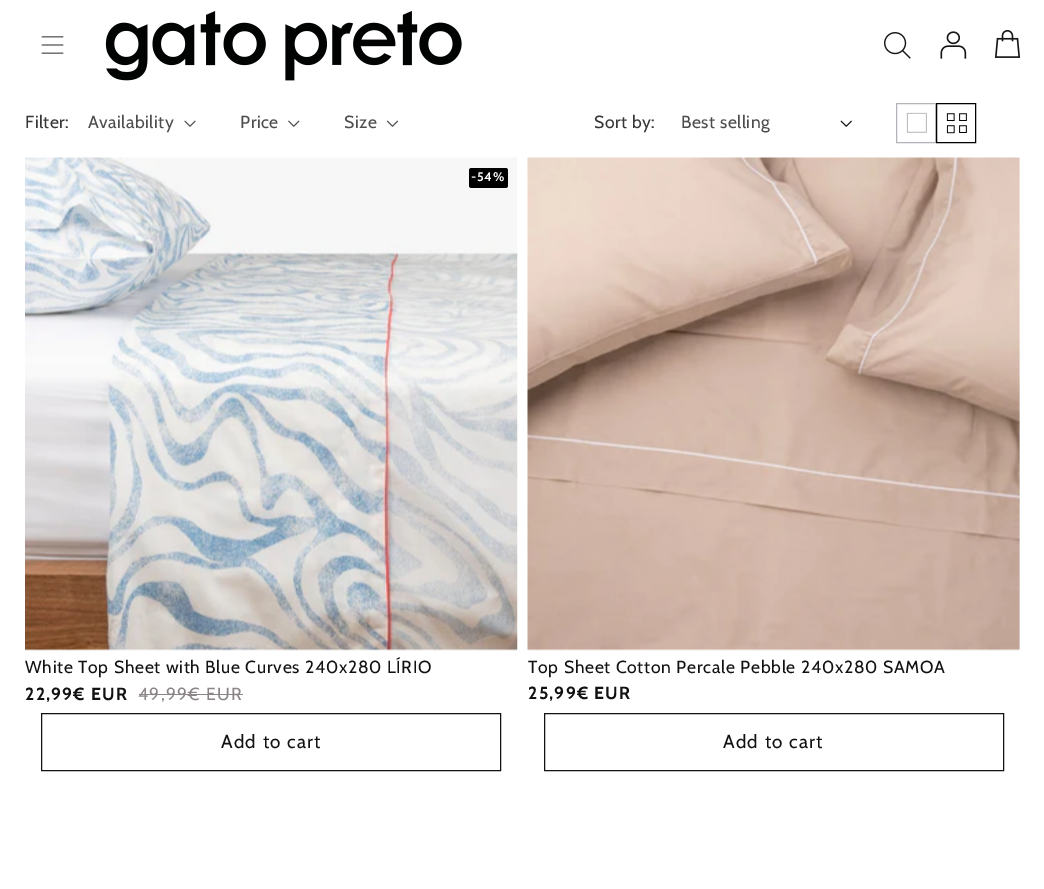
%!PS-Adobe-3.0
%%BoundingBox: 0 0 1044 889
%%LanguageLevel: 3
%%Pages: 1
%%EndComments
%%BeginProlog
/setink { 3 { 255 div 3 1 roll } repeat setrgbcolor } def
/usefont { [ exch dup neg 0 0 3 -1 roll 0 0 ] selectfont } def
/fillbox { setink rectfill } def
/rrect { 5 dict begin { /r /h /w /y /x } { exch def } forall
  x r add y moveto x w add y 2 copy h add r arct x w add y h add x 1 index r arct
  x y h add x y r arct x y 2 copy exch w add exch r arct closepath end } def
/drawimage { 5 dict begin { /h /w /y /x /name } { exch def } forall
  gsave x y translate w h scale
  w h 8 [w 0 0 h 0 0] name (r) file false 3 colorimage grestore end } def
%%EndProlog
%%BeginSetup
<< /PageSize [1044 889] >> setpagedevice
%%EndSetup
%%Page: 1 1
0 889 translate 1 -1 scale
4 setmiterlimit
0 0 1044 889 255 255 255 fillbox
(assets/img1.rgb) 41 36 23 18 drawimage
(assets/img2.rgb) 105 10 357 71 drawimage
(assets/img3.rgb) 884 32 27 27 drawimage
(assets/img4.rgb) 940 31 27 28 drawimage
(assets/img5.rgb) 994 30 27 28 drawimage
/Cabin-Regular 17.5 usefont
54 54 54 setink
25 128 moveto 0.5 0 (Filter:) ashow
77 77 77 setink
88 128 moveto 0.5 0 (Availability) ashow
(assets/img6.rgb) 184 120 12 7 drawimage
240 128 moveto 0.5 0 (Price) ashow
(assets/img7.rgb) 288 120 12 7 drawimage
344 128 moveto 0.5 0 (Size) ashow
(assets/img8.rgb) 386 120 13 7 drawimage
54 54 54 setink
594 128 moveto 0.5 0 (Sort by:) ashow
77 77 77 setink
681 128 moveto 0.5 0 (Best selling) ashow
(assets/img9.rgb) 840 120 12 7 drawimage
179 179 185 setink
896.5 103.5 39 39 rectstroke
(assets/img10.rgb) 906 112 21 21 drawimage
0 0 0 setink
936.5 103.5 39 39 rectstroke
(assets/img11.rgb) 946 113 21 21 drawimage
(assets/img12.rgb) 25 157 493 494 drawimage
469 168 39 20 2.5 rrect fill
/Cabin-Bold 12.5 usefont
255 255 255 setink
471 181 moveto 0.75 0 (-54%) ashow
/Cabin-Regular 17.5 usefont
18 18 18 setink
25 673 moveto 0.75 0 (White Top Sheet with Blue Curves 240x280 LÍRIO) ashow
/Cabin-Bold 17.5 usefont
25 700 moveto 1.25 0 (22,99€ EUR) ashow
/Cabin-Regular 17.5 usefont
139 133 134 setink
138 700 moveto 1.25 0 (49,99€ EUR) ashow
139 694 104 1 139 133 134 fillbox
18 18 18 setink
41.5 713.5 459 57 rectstroke
/Cabin-Regular 18.75 usefont
221 748 moveto 1.25 0 (Add to cart) ashow
(assets/img13.rgb) 527 157 493 494 drawimage
gsave
528 655 492 23 rectclip
/Cabin-Regular 17.5 usefont
528 673 moveto 0.75 0 (Top Sheet Cotton Percale Pebble 240x280 SAMOA) ashow
grestore
/Cabin-Bold 17.5 usefont
528 699 moveto 1.25 0 (25,99€ EUR) ashow
544.5 713.5 459 57 rectstroke
/Cabin-Regular 18.75 usefont
723 748 moveto 1.25 0 (Add to cart) ashow
showpage
%%EOF
